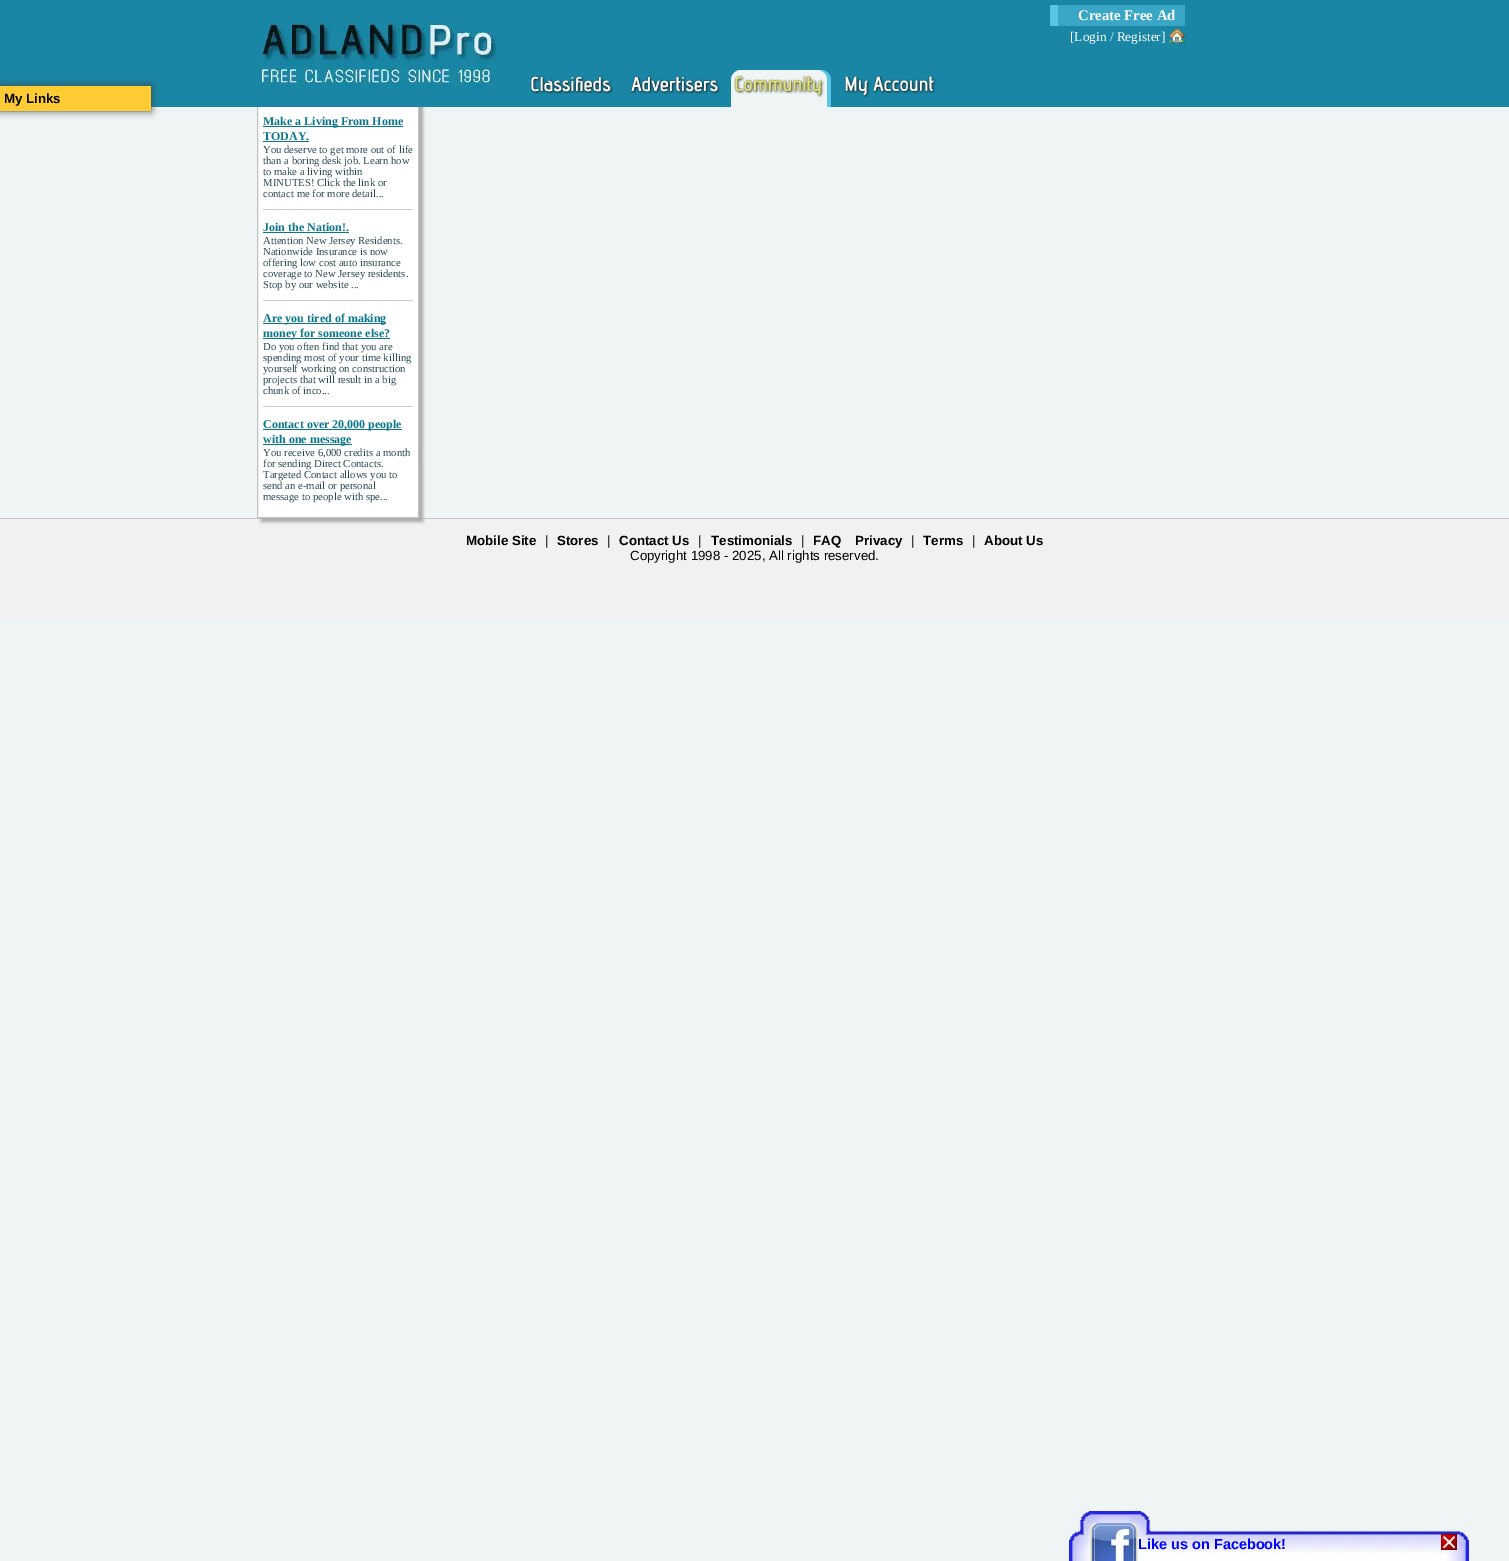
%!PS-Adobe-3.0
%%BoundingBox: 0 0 1509 1561
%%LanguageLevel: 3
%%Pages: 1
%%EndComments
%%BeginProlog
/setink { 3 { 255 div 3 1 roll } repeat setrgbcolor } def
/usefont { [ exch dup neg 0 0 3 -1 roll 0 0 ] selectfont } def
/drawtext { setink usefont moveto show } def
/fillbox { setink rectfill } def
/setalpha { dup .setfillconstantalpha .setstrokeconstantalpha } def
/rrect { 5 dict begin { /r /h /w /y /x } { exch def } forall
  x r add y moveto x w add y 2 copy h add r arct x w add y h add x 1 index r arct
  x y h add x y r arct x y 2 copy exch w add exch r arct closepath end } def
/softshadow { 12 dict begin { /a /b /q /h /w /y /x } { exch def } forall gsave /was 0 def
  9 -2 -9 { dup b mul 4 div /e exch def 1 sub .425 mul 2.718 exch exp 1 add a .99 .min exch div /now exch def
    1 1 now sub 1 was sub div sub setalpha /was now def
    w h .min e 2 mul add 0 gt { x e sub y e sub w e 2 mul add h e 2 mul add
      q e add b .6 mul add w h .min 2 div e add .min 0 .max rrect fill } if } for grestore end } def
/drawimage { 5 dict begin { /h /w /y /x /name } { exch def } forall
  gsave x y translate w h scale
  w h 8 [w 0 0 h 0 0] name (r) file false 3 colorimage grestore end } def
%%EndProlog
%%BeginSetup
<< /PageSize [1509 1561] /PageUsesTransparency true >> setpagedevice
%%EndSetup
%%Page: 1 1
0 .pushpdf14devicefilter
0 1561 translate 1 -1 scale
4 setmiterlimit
0 0 1509 1561 239 245 245 fillbox
0 519 1509 99 241 241 241 fillbox
0 518 1509 1 199 199 199 fillbox
170 170 170 setink
261 89 162 433 0 1.5 1 softshadow
258 107 160 410 255 255 255 fillbox
193 193 193 setink
257.5 85.5 161 432 rectstroke
0 0 1509 107 25 134 165 fillbox
(assets/img1.rgb) 259 23 238 65 drawimage
1058 5 127 21 57 166 197 fillbox
1050 5 8 21 89 198 229 fillbox
(Create Free Ad) 1078 20 /LiberationSerif-Bold 14.75 255 255 255 drawtext
([Login / Register]) 1070 41 /LiberationSerif-Regular 13.3 255 255 255 drawtext
(assets/img2.rgb) 1169 28 16 15 drawimage
(assets/img3.rgb) 530 75 83 19 drawimage
(assets/img4.rgb) 630 76 91 18 drawimage
89 198 229 setink
827 107 moveto 831 107 lineto 831 80 lineto 831 74.5 826.5 70 821 70 curveto 817 70 lineto 822.5 70 827 74.5 827 80 curveto closepath fill
239 245 245 setink
741 70 moveto 817 70 lineto 822.5 70 827 74.5 827 80 curveto 827 107 lineto 731 107 lineto 731 80 lineto 731 74.5 735.5 70 741 70 curveto closepath fill
(assets/img5.rgb) 734 75 90 23 drawimage
(assets/img6.rgb) 844 75 92 23 drawimage
68 68 68 setink
0 86 151 25 0 4 1 softshadow
0 86 151 25 255 204 51 fillbox
(My Links) 4 103 /LiberationSans-Bold 13.3 0 0 0 drawtext
263 126 140 1 10 119 139 fillbox
(Make a Living From Home) 263 125 /LiberationSerif-Bold 12 10 119 139 drawtext
(TODAY.) 263 140 /LiberationSerif-Bold 12 10 119 139 drawtext
263 141 46 1 10 119 139 fillbox
(You deserve to get more out of life) 263 153 /LiberationSerif-Regular 10.7 40 73 82 drawtext
(than a boring desk job. Learn how) 263 164 /LiberationSerif-Regular 10.7 40 73 82 drawtext
(to make a living within) 263 175 /LiberationSerif-Regular 10.7 40 73 82 drawtext
(MINUTES! Click the link or) 263 186 /LiberationSerif-Regular 10.7 40 73 82 drawtext
(contact me for more detail...) 263 197 /LiberationSerif-Regular 10.7 40 73 82 drawtext
263 209 150 1 204 204 204 fillbox
(Join the Nation!.) 263 231 /LiberationSerif-Bold 12 10 119 139 drawtext
263 232 86 1 10 119 139 fillbox
(Attention New Jersey Residents.) 263 244 /LiberationSerif-Regular 10.7 40 73 82 drawtext
(Nationwide Insurance is now) 263 255 /LiberationSerif-Regular 10.7 40 73 82 drawtext
(offering low cost auto insurance) 263 266 /LiberationSerif-Regular 10.7 40 73 82 drawtext
(coverage to New Jersey residents.) 263 277 /LiberationSerif-Regular 10.7 40 73 82 drawtext
(Stop by our website ...) 263 288 /LiberationSerif-Regular 10.7 40 73 82 drawtext
263 300 150 1 204 204 204 fillbox
263 323 123 1 10 119 139 fillbox
(Are you tired of making) 263 322 /LiberationSerif-Bold 12 10 119 139 drawtext
263 338 127 1 10 119 139 fillbox
(money for someone else?) 263 337 /LiberationSerif-Bold 12 10 119 139 drawtext
(Do you often find that you are) 263 350 /LiberationSerif-Regular 10.7 40 73 82 drawtext
(spending most of your time killing) 263 361 /LiberationSerif-Regular 10.7 40 73 82 drawtext
(yourself working on construction) 263 372 /LiberationSerif-Regular 10.7 40 73 82 drawtext
(projects that will result in a big) 263 383 /LiberationSerif-Regular 10.7 40 73 82 drawtext
(chunk of inco...) 263 394 /LiberationSerif-Regular 10.7 40 73 82 drawtext
263 406 150 1 204 204 204 fillbox
263 429 139 1 10 119 139 fillbox
(Contact over 20,000 people) 263 428 /LiberationSerif-Bold 12 10 119 139 drawtext
263 444 89 1 10 119 139 fillbox
(with one message) 263 443 /LiberationSerif-Bold 12 10 119 139 drawtext
(You receive 6,000 credits a month) 263 456 /LiberationSerif-Regular 10.7 40 73 82 drawtext
(for sending Direct Contacts.) 263 467 /LiberationSerif-Regular 10.7 40 73 82 drawtext
(Targeted Contact allows you to) 263 478 /LiberationSerif-Regular 10.7 40 73 82 drawtext
(send an e-mail or personal) 263 489 /LiberationSerif-Regular 10.7 40 73 82 drawtext
(message to people with spe...) 263 500 /LiberationSerif-Regular 10.7 40 73 82 drawtext
(Mobile Site) 466 545 /LiberationSans-Bold 13.3 0 0 0 drawtext
(|) 545 545 /LiberationSans-Regular 13.3 0 0 0 drawtext
(Stores) 557 545 /LiberationSans-Bold 13.3 0 0 0 drawtext
(|) 607 545 /LiberationSans-Regular 13.3 0 0 0 drawtext
(Contact Us) 619 545 /LiberationSans-Bold 13.3 0 0 0 drawtext
(|) 698 545 /LiberationSans-Regular 13.3 0 0 0 drawtext
(Testimonials) 711 545 /LiberationSans-Bold 13.3 0 0 0 drawtext
(|) 801 545 /LiberationSans-Regular 13.3 0 0 0 drawtext
(FAQ) 813 545 /LiberationSans-Bold 13.3 0 0 0 drawtext
(Privacy) 855 545 /LiberationSans-Bold 13.3 0 0 0 drawtext
(|) 911 545 /LiberationSans-Regular 13.3 0 0 0 drawtext
(Terms) 923 545 /LiberationSans-Bold 13.3 0 0 0 drawtext
(|) 972 545 /LiberationSans-Regular 13.3 0 0 0 drawtext
(About Us) 984 545 /LiberationSans-Bold 13.3 0 0 0 drawtext
(Copyright 1998 - 2025, All rights reserved.) 630 560 /LiberationSans-Regular 13.3 0 0 0 drawtext
(assets/img7.rgb) 1069 1511 400 50 drawimage
(assets/img8.rgb) 1090 1523 48 38 drawimage
(Like us on Facebook!) 1138 1549 /LiberationSans-Bold 14.5 0 0 255 drawtext
(assets/img9.rgb) 1441 1534 16 16 drawimage
.poppdf14devicefilter showpage
%%EOF
